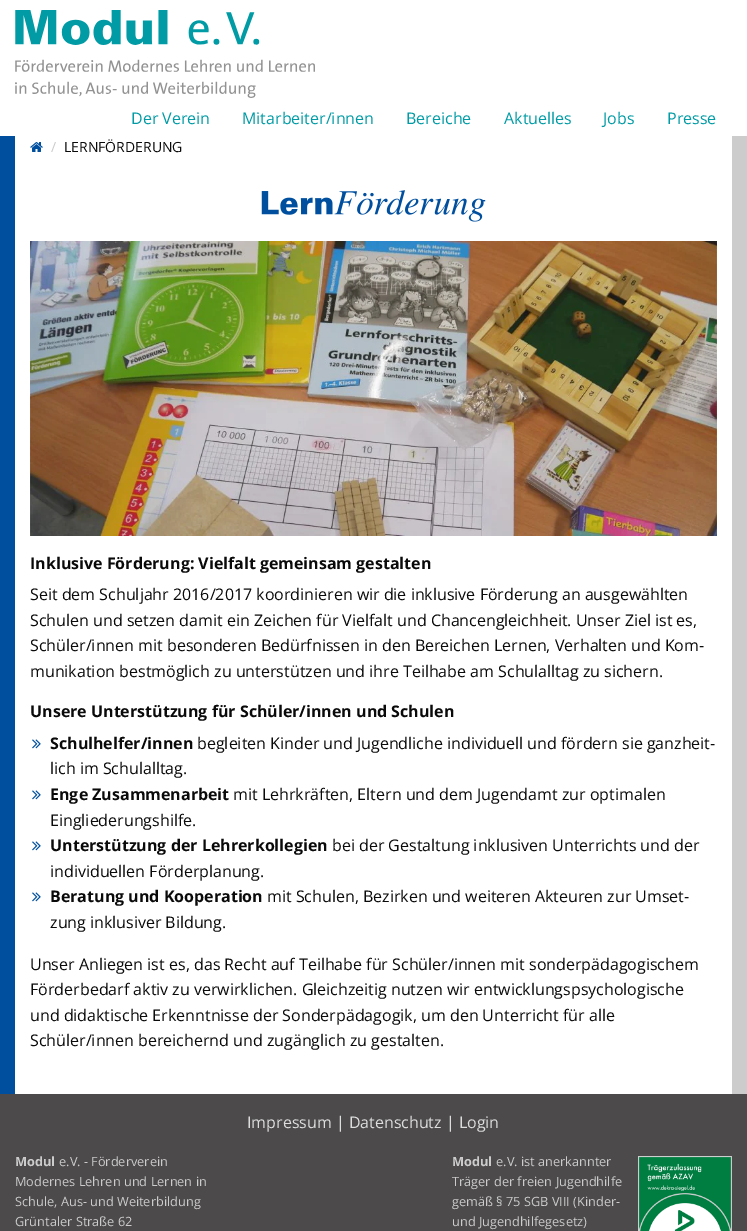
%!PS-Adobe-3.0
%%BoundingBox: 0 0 747 1231
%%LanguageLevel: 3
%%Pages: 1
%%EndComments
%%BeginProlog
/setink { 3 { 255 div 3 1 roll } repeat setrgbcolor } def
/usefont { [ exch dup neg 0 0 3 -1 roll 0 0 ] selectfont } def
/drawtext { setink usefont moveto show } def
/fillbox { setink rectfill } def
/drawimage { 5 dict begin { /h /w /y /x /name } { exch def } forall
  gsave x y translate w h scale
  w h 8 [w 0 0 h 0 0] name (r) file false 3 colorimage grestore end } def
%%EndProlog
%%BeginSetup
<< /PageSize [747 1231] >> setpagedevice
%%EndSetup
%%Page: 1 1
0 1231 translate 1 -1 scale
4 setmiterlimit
0 0 747 1231 0 79 159 fillbox
732 136 15 958 204 204 204 fillbox
0 0 747 136 255 255 255 fillbox
(assets/img1.rgb) 15 10 300 88 drawimage
(Der Verein) 131 124 /OpenSans-Regular 16 0 155 164 drawtext
(Mitarbeiter/innen) 242 124 /OpenSans-Regular 16 0 155 164 drawtext
(Bereiche) 406 124 /OpenSans-Regular 16 0 155 164 drawtext
(Aktuelles) 504 124 /OpenSans-Regular 16 0 155 164 drawtext
(Jobs) 603 124 /OpenSans-Regular 16 0 155 164 drawtext
(Presse) 667 124 /OpenSans-Regular 16 0 155 164 drawtext
15 136 717 958 255 255 255 fillbox
(assets/img2.rgb) 30 142 13 10 drawimage
(/) 51 152 /OpenSans-Regular 14 204 204 204 drawtext
(LERNFÖRDERUNG) 64 152 /OpenSans-Regular 14 10 10 10 drawtext
(assets/img3.rgb) 261 190 225 32 drawimage
(assets/img4.rgb) 30 241 687 295 drawimage
(Inklusive Förderung: Vielfalt gemeinsam gestalten) 30 569 /OpenSans-Bold 16 10 10 10 drawtext
(Seit dem Schuljahr 2016/2017 koordinieren wir die inklusive Förderung an ausgewählten) 30 600 /OpenSans-Regular 16 10 10 10 drawtext
(Schulen und setzen damit ein Zeichen für Vielfalt und Chancengleichheit. Unser Ziel ist es,) 30 626 /OpenSans-Regular 16 10 10 10 drawtext
(Schüler/innen mit besonderen Bedürfnissen in den Bereichen Lernen, Verhalten und Kom-) 30 651 /OpenSans-Regular 16 10 10 10 drawtext
(munikation bestmöglich zu unterstützen und ihre Teilhabe am Schulalltag zu sichern.) 30 677 /OpenSans-Regular 16 10 10 10 drawtext
(Unsere Unterstützung für Schüler/innen und Schulen) 30 717 /OpenSans-Bold 16 10 10 10 drawtext
(assets/img5.rgb) 32 739 9 10 drawimage
(Schulhelfer/innen) 50 749 /OpenSans-Bold 16 10 10 10 drawtext
(begleiten Kinder und Jugendliche individuell und fördern sie ganzheit-) 197 749 /OpenSans-Regular 16 10 10 10 drawtext
(lich im Schulalltag.) 50 774 /OpenSans-Regular 16 10 10 10 drawtext
(assets/img5.rgb) 32 790 9 10 drawimage
(Enge Zusammenarbeit) 50 800 /OpenSans-Bold 16 10 10 10 drawtext
(mit Lehrkräften, Eltern und dem Jugendamt zur optimalen) 233 800 /OpenSans-Regular 16 10 10 10 drawtext
(Eingliederungshilfe.) 50 826 /OpenSans-Regular 16 10 10 10 drawtext
(assets/img5.rgb) 32 841 9 10 drawimage
(Unterstützung der Lehrerkollegien) 50 851 /OpenSans-Bold 16 10 10 10 drawtext
(bei der Gestaltung inklusiven Unterrichts und der) 332 851 /OpenSans-Regular 16 10 10 10 drawtext
(individuellen Förderplanung.) 50 877 /OpenSans-Regular 16 10 10 10 drawtext
(assets/img5.rgb) 32 892 9 10 drawimage
(Beratung und Kooperation) 50 902 /OpenSans-Bold 16 10 10 10 drawtext
(mit Schulen, Bezirken und weiteren Akteuren zur Umset-) 267 902 /OpenSans-Regular 16 10 10 10 drawtext
(zung inklusiver Bildung.) 50 928 /OpenSans-Regular 16 10 10 10 drawtext
(Unser Anliegen ist es, das Recht auf Teilhabe für Schüler/innen mit sonderpädagogischem) 30 970 /OpenSans-Regular 16 10 10 10 drawtext
(Förderbedarf aktiv zu verwirklichen. Gleichzeitig nutzen wir entwicklungspsychologische) 30 995 /OpenSans-Regular 16 10 10 10 drawtext
(und didaktische Erkenntnisse der Sonderpädagogik, um den Unterricht für alle) 30 1021 /OpenSans-Regular 16 10 10 10 drawtext
(Schüler/innen bereichernd und zugänglich zu gestalten.) 30 1046 /OpenSans-Regular 16 10 10 10 drawtext
0 1094 747 137 76 74 74 fillbox
(Impressum | Datenschutz | Login) 247 1128 /OpenSans-Regular 16 221 221 221 drawtext
(Modul) 15 1166 /OpenSans-Bold 12.75 204 204 204 drawtext
(e.V. - Förderverein) 59 1166 /OpenSans-Regular 12.75 204 204 204 drawtext
(Modernes Lehren und Lernen in) 15 1186 /OpenSans-Regular 12.75 204 204 204 drawtext
(Schule, Aus- und Weiterbildung) 15 1206 /OpenSans-Regular 12.75 204 204 204 drawtext
(Grüntaler Straße 62) 15 1226 /OpenSans-Regular 12.75 204 204 204 drawtext
(Modul) 452 1166 /OpenSans-Bold 12.75 204 204 204 drawtext
(e.V. ist anerkannter) 496 1166 /OpenSans-Regular 12.75 204 204 204 drawtext
(Träger der freien Jugendhilfe) 452 1186 /OpenSans-Regular 12.75 204 204 204 drawtext
(gemäß § 75 SGB VIII \(Kinder-) 452 1206 /OpenSans-Regular 12.75 204 204 204 drawtext
(und Jugendhilfegesetz\)) 452 1226 /OpenSans-Regular 12.75 204 204 204 drawtext
(assets/img6.rgb) 638 1156 94 75 drawimage
showpage
%%EOF
